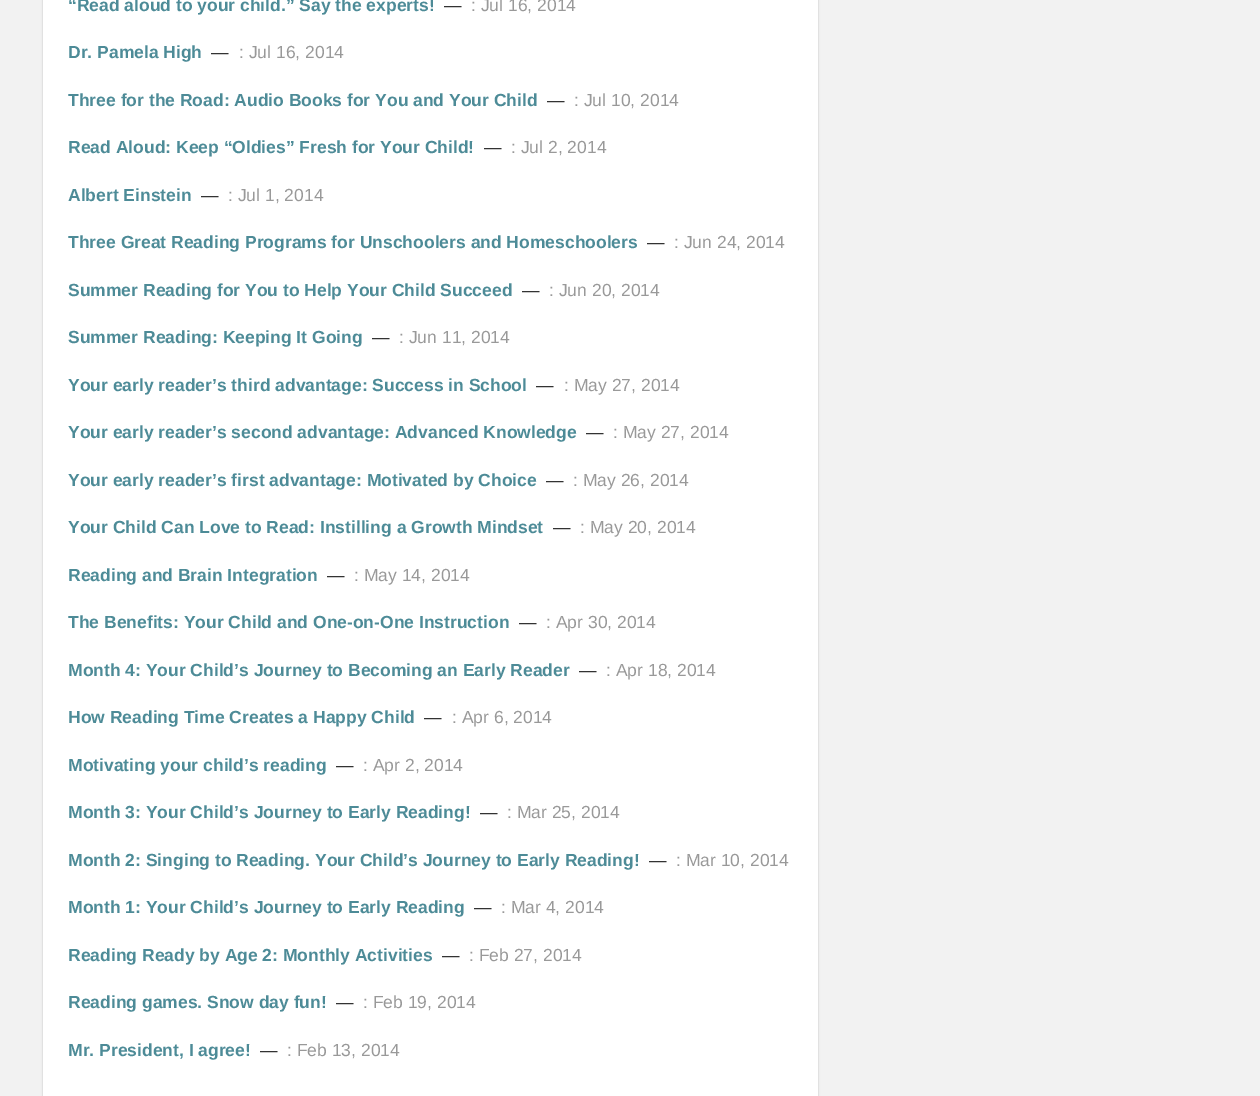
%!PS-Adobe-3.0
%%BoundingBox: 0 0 1260 1096
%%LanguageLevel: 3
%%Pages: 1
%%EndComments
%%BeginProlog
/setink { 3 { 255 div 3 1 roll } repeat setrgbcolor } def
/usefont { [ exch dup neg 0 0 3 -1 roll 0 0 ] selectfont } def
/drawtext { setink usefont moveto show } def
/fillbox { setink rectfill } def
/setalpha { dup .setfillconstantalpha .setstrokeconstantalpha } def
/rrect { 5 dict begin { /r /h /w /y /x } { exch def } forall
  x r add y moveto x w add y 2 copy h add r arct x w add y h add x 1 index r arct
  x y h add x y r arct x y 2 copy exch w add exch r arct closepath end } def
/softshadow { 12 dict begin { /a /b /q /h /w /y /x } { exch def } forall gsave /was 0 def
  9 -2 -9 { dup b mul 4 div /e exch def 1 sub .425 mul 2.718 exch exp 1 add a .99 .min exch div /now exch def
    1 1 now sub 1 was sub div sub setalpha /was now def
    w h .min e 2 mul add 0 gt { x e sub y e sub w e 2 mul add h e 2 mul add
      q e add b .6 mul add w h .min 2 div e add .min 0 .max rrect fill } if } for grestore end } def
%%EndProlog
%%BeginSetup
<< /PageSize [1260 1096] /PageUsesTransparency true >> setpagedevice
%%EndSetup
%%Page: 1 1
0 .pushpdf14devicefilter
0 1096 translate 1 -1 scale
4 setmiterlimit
0 0 1260 1096 242 242 242 fillbox
0 0 0 setink
43 -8 775 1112 5 1 0.2 softshadow
43 0 775 1096 255 255 255 fillbox
(“Read aloud to your child.” Say the experts!) 68 11 /LiberationSans-Bold 17.5 77 139 151 drawtext
(—) 444 11 /LiberationSans-Regular 17.5 51 51 51 drawtext
(: Jul 16, 2014) 471 11 /LiberationSans-Regular 17.5 153 153 153 drawtext
(Dr. Pamela High) 68 58 /LiberationSans-Bold 17.5 77 139 151 drawtext
(—) 211 58 /LiberationSans-Regular 17.5 51 51 51 drawtext
(: Jul 16, 2014) 239 58 /LiberationSans-Regular 17.5 153 153 153 drawtext
(Three for the Road: Audio Books for You and Your Child) 68 106 /LiberationSans-Bold 17.5 77 139 151 drawtext
(—) 547 106 /LiberationSans-Regular 17.5 51 51 51 drawtext
(: Jul 10, 2014) 574 106 /LiberationSans-Regular 17.5 153 153 153 drawtext
(Read Aloud: Keep “Oldies” Fresh for Your Child!) 68 153 /LiberationSans-Bold 17.5 77 139 151 drawtext
(—) 484 153 /LiberationSans-Regular 17.5 51 51 51 drawtext
(: Jul 2, 2014) 511 153 /LiberationSans-Regular 17.5 153 153 153 drawtext
(Albert Einstein) 68 201 /LiberationSans-Bold 17.5 77 139 151 drawtext
(—) 201 201 /LiberationSans-Regular 17.5 51 51 51 drawtext
(: Jul 1, 2014) 228 201 /LiberationSans-Regular 17.5 153 153 153 drawtext
(Three Great Reading Programs for Unschoolers and Homeschoolers) 68 248 /LiberationSans-Bold 17.5 77 139 151 drawtext
(—) 647 248 /LiberationSans-Regular 17.5 51 51 51 drawtext
(: Jun 24, 2014) 674 248 /LiberationSans-Regular 17.5 153 153 153 drawtext
(Summer Reading for You to Help Your Child Succeed) 68 296 /LiberationSans-Bold 17.5 77 139 151 drawtext
(—) 522 296 /LiberationSans-Regular 17.5 51 51 51 drawtext
(: Jun 20, 2014) 549 296 /LiberationSans-Regular 17.5 153 153 153 drawtext
(Summer Reading: Keeping It Going) 68 343 /LiberationSans-Bold 17.5 77 139 151 drawtext
(—) 372 343 /LiberationSans-Regular 17.5 51 51 51 drawtext
(: Jun 11, 2014) 399 343 /LiberationSans-Regular 17.5 153 153 153 drawtext
(Your early reader’s third advantage: Success in School) 68 391 /LiberationSans-Bold 17.5 77 139 151 drawtext
(—) 536 391 /LiberationSans-Regular 17.5 51 51 51 drawtext
(: May 27, 2014) 564 391 /LiberationSans-Regular 17.5 153 153 153 drawtext
(Your early reader’s second advantage: Advanced Knowledge) 68 438 /LiberationSans-Bold 17.5 77 139 151 drawtext
(—) 586 438 /LiberationSans-Regular 17.5 51 51 51 drawtext
(: May 27, 2014) 613 438 /LiberationSans-Regular 17.5 153 153 153 drawtext
(Your early reader’s first advantage: Motivated by Choice) 68 486 /LiberationSans-Bold 17.5 77 139 151 drawtext
(—) 546 486 /LiberationSans-Regular 17.5 51 51 51 drawtext
(: May 26, 2014) 573 486 /LiberationSans-Regular 17.5 153 153 153 drawtext
(Your Child Can Love to Read: Instilling a Growth Mindset) 68 533 /LiberationSans-Bold 17.5 77 139 151 drawtext
(—) 553 533 /LiberationSans-Regular 17.5 51 51 51 drawtext
(: May 20, 2014) 580 533 /LiberationSans-Regular 17.5 153 153 153 drawtext
(Reading and Brain Integration) 68 581 /LiberationSans-Bold 17.5 77 139 151 drawtext
(—) 327 581 /LiberationSans-Regular 17.5 51 51 51 drawtext
(: May 14, 2014) 354 581 /LiberationSans-Regular 17.5 153 153 153 drawtext
(The Benefits: Your Child and One-on-One Instruction) 68 628 /LiberationSans-Bold 17.5 77 139 151 drawtext
(—) 519 628 /LiberationSans-Regular 17.5 51 51 51 drawtext
(: Apr 30, 2014) 546 628 /LiberationSans-Regular 17.5 153 153 153 drawtext
(Month 4: Your Child’s Journey to Becoming an Early Reader) 68 676 /LiberationSans-Bold 17.5 77 139 151 drawtext
(—) 579 676 /LiberationSans-Regular 17.5 51 51 51 drawtext
(: Apr 18, 2014) 606 676 /LiberationSans-Regular 17.5 153 153 153 drawtext
(How Reading Time Creates a Happy Child) 68 723 /LiberationSans-Bold 17.5 77 139 151 drawtext
(—) 424 723 /LiberationSans-Regular 17.5 51 51 51 drawtext
(: Apr 6, 2014) 452 723 /LiberationSans-Regular 17.5 153 153 153 drawtext
(Motivating your child’s reading) 68 771 /LiberationSans-Bold 17.5 77 139 151 drawtext
(—) 336 771 /LiberationSans-Regular 17.5 51 51 51 drawtext
(: Apr 2, 2014) 363 771 /LiberationSans-Regular 17.5 153 153 153 drawtext
(Month 3: Your Child’s Journey to Early Reading!) 68 818 /LiberationSans-Bold 17.5 77 139 151 drawtext
(—) 480 818 /LiberationSans-Regular 17.5 51 51 51 drawtext
(: Mar 25, 2014) 507 818 /LiberationSans-Regular 17.5 153 153 153 drawtext
(Month 2: Singing to Reading. Your Child’s Journey to Early Reading!) 68 866 /LiberationSans-Bold 17.5 77 139 151 drawtext
(—) 649 866 /LiberationSans-Regular 17.5 51 51 51 drawtext
(: Mar 10, 2014) 676 866 /LiberationSans-Regular 17.5 153 153 153 drawtext
(Month 1: Your Child’s Journey to Early Reading) 68 913 /LiberationSans-Bold 17.5 77 139 151 drawtext
(—) 474 913 /LiberationSans-Regular 17.5 51 51 51 drawtext
(: Mar 4, 2014) 501 913 /LiberationSans-Regular 17.5 153 153 153 drawtext
(Reading Ready by Age 2: Monthly Activities) 68 961 /LiberationSans-Bold 17.5 77 139 151 drawtext
(—) 442 961 /LiberationSans-Regular 17.5 51 51 51 drawtext
(: Feb 27, 2014) 469 961 /LiberationSans-Regular 17.5 153 153 153 drawtext
(Reading games. Snow day fun!) 68 1008 /LiberationSans-Bold 17.5 77 139 151 drawtext
(—) 336 1008 /LiberationSans-Regular 17.5 51 51 51 drawtext
(: Feb 19, 2014) 363 1008 /LiberationSans-Regular 17.5 153 153 153 drawtext
(Mr. President, I agree!) 68 1056 /LiberationSans-Bold 17.5 77 139 151 drawtext
(—) 260 1056 /LiberationSans-Regular 17.5 51 51 51 drawtext
(: Feb 13, 2014) 287 1056 /LiberationSans-Regular 17.5 153 153 153 drawtext
.poppdf14devicefilter showpage
%%EOF
